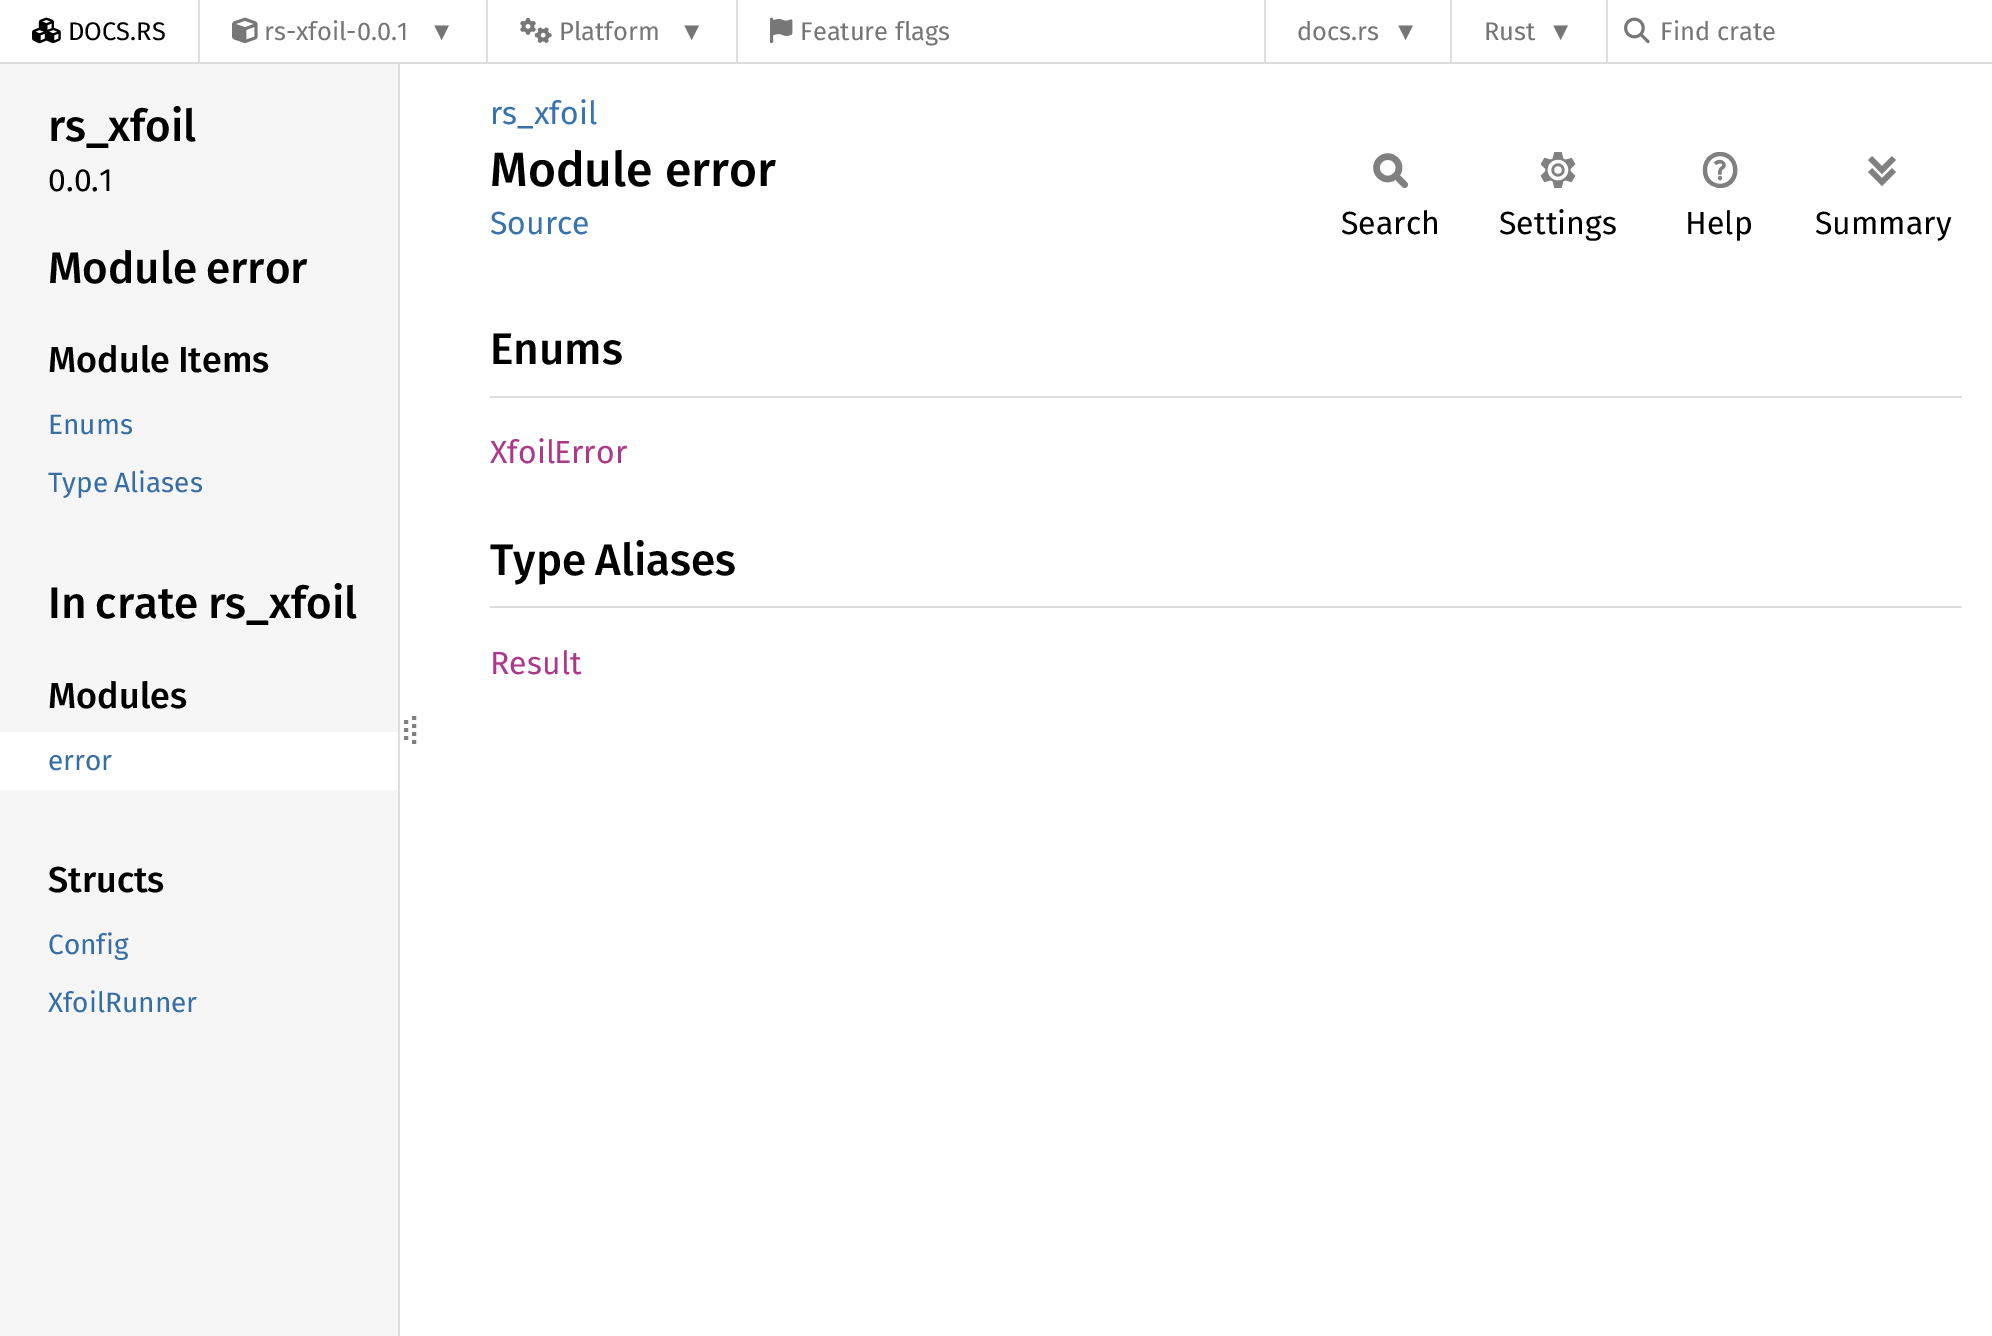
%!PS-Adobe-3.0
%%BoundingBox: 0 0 1992 1336
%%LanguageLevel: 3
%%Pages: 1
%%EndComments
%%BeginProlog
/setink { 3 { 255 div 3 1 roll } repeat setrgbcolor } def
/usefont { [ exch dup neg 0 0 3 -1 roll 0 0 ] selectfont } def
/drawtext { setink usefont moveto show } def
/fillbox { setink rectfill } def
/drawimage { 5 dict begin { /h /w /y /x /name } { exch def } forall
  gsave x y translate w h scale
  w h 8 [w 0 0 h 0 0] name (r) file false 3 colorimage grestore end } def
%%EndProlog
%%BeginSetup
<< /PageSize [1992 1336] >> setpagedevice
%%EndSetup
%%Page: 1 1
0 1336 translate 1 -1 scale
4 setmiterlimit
0 0 1992 1336 255 255 255 fillbox
0 62 1992 2 221 221 221 fillbox
(assets/img1.rgb) 32 17 29 27 drawimage
(DOCS.RS) 68 40 /FiraSans-Regular 25.5 0 0 0 drawtext
198 0 2 62 221 221 221 fillbox
(assets/img2.rgb) 232 17 26 27 drawimage
(rs-xfoil-0.0.1) 264 40 /FiraSans-Regular 25.5 117 117 117 drawtext
(▼) 429 40 /LiberationSans-Regular 25.5 117 117 117 drawtext
486 0 2 62 221 221 221 fillbox
(assets/img3.rgb) 520 18 32 25 drawimage
(Platform) 559 40 /FiraSans-Regular 25.5 117 117 117 drawtext
(▼) 679 40 /LiberationSans-Regular 25.5 117 117 117 drawtext
736 0 2 62 221 221 221 fillbox
(assets/img4.rgb) 770 17 23 27 drawimage
(Feature flags) 800 40 /FiraSans-Regular 25.5 117 117 117 drawtext
1264 0 2 62 221 221 221 fillbox
(docs.rs) 1297 40 /FiraSans-Regular 25.5 117 117 117 drawtext
(▼) 1393 40 /LiberationSans-Regular 25.5 117 117 117 drawtext
1450 0 2 62 221 221 221 fillbox
(Rust) 1484 40 /FiraSans-Regular 25.5 117 117 117 drawtext
(▼) 1548 40 /LiberationSans-Regular 25.5 117 117 117 drawtext
1606 0 2 62 221 221 221 fillbox
(assets/img5.rgb) 1624 17 26 27 drawimage
(Find crate) 1660 40 /FiraSans-Regular 25.5 117 117 117 drawtext
0 64 398 1272 245 245 245 fillbox
398 64 2 1272 221 221 221 fillbox
(rs_) 48 141 /FiraSans-Medium 44 0 0 0 drawtext
(xfoil) 108 141 /FiraSans-Medium 44 0 0 0 drawtext
(0.0.1) 48 191 /FiraSans-Regular 32 0 0 0 drawtext
/FiraSans-Medium 44 usefont
48 283 moveto -2 0 32 (Module error) widthshow
/FiraSans-Medium 36 usefont
48 372 moveto -1 0 32 (Module Items) widthshow
(Enums) 48 434 /FiraSans-Regular 28 53 109 164 drawtext
48 492 moveto -2 0 32 (Type Aliases) widthshow
/FiraSans-Medium 44 usefont
0 0 0 setink
48 618 moveto -2 0 32 (In crate rs_) widthshow
(xfoil) 269 618 /FiraSans-Medium 44 0 0 0 drawtext
(Modules) 48 708 /FiraSans-Medium 36 0 0 0 drawtext
0 732 398 58 255 255 255 fillbox
(error) 48 770 /FiraSans-Regular 28 53 109 164 drawtext
(Structs) 48 892 /FiraSans-Medium 36 0 0 0 drawtext
(Config) 48 954 /FiraSans-Regular 28 53 109 164 drawtext
(XfoilRunner) 48 1012 /FiraSans-Regular 28 53 109 164 drawtext
128 128 128 setink
4 setlinewidth
406 720 moveto 406 724 lineto 406 728 moveto 406 732 lineto 406 736 moveto 406 740 lineto stroke
[4 4] 0 setdash
414 716 moveto 414 748 lineto stroke
(rs_xfoil) 490 124 /FiraSans-Regular 32 56 115 173 drawtext
(Module error) 490 186 /FiraSans-Medium 48 0 0 0 drawtext
(Source) 490 234 /FiraSans-Regular 32 56 115 173 drawtext
(assets/img6.rgb) 1373 153 35 35 drawimage
(Search) 1341 234 /FiraSans-Regular 32 0 0 0 drawtext
(assets/img7.rgb) 1540 152 36 36 drawimage
(Settings) 1499 234 /FiraSans-Regular 32 0 0 0 drawtext
(assets/img8.rgb) 1702 152 36 36 drawimage
(Help) 1685 234 /FiraSans-Regular 32 0 0 0 drawtext
(assets/img9.rgb) 1868 156 28 31 drawimage
(Summary) 1815 234 /FiraSans-Regular 32 0 0 0 drawtext
490 396 1472 2 221 221 221 fillbox
(Enums) 490 364 /FiraSans-Medium 44 0 0 0 drawtext
(Xfoil) 490 463 /FiraSans-Regular 32 173 55 138 drawtext
(Error) 554 463 /FiraSans-Regular 32 173 55 138 drawtext
490 606 1472 2 221 221 221 fillbox
/FiraSans-Medium 44 usefont
0 0 0 setink
490 575 moveto -2 0 32 (Type Aliases) widthshow
(Result) 490 674 /FiraSans-Regular 32 173 55 138 drawtext
showpage
%%EOF
